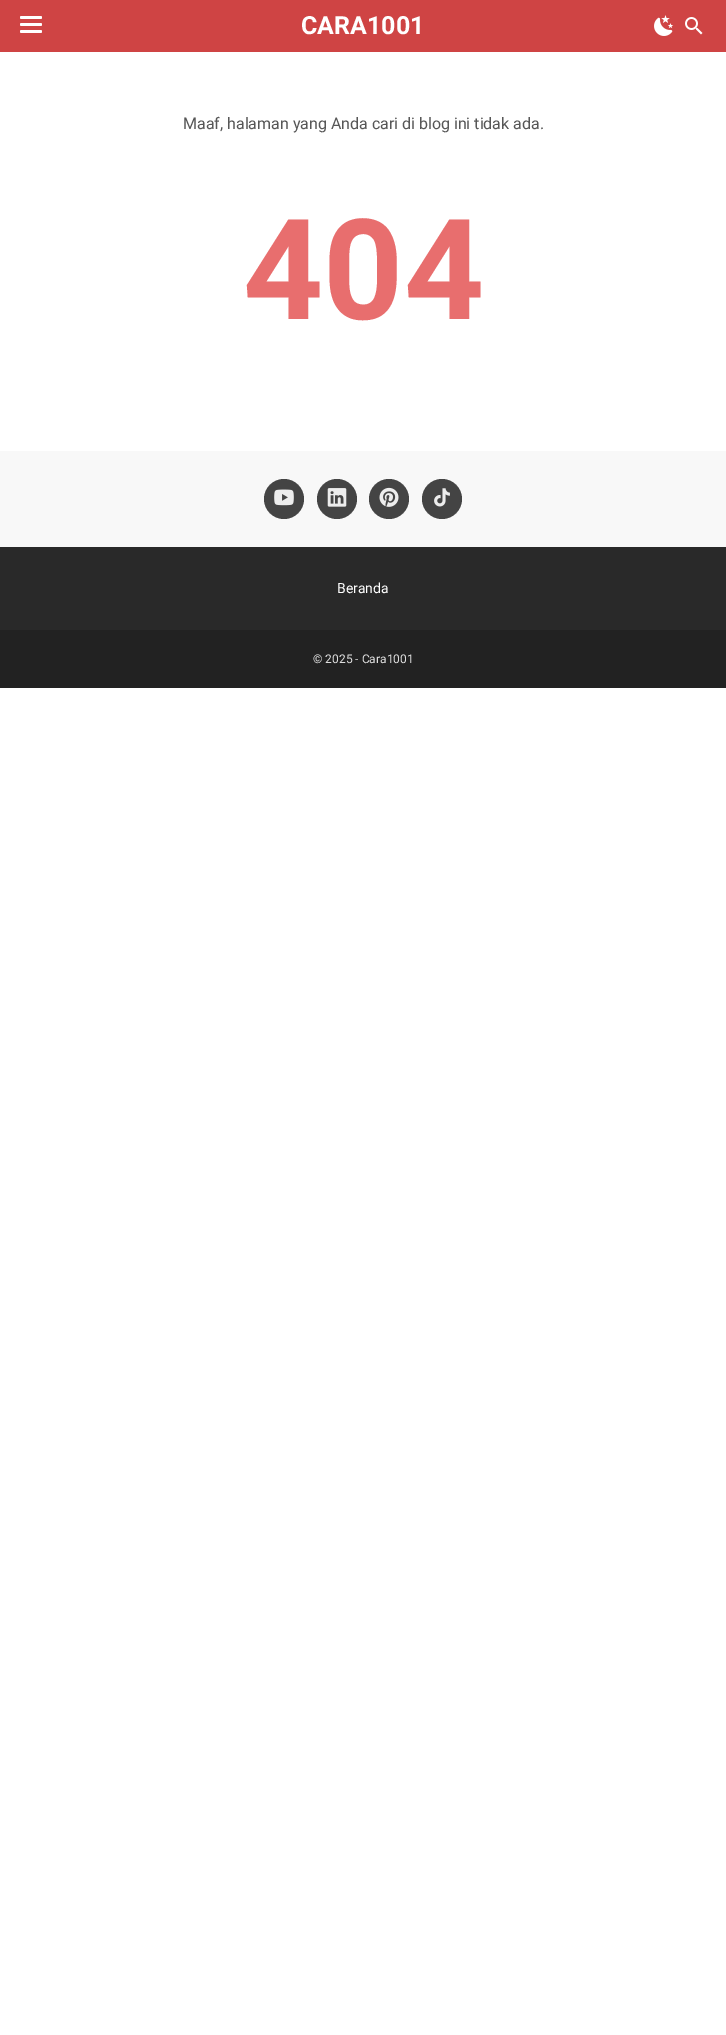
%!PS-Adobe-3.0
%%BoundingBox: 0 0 726 2035
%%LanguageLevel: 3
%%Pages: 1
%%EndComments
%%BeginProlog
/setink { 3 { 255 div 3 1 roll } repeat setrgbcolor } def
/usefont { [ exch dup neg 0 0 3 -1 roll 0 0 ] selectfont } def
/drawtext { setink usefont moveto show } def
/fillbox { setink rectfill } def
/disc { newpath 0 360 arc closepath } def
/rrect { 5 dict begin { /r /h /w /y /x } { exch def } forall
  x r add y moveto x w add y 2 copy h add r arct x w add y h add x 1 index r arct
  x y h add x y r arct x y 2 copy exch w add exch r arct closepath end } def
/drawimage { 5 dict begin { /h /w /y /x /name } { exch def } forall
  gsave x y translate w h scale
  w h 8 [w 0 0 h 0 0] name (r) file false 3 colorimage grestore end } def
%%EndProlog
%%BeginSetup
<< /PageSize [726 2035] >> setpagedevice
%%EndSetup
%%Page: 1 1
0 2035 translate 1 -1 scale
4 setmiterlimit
0 0 726 2035 255 255 255 fillbox
0 0 726 52 207 68 68 fillbox
255 255 255 setink
20 16 22 3 1.5 rrect fill
20 23 22 3 1.5 rrect fill
20 30 22 3 1.5 rrect fill
(CARA1001) 301 34 /Roboto-Bold 25 255 255 255 drawtext
(assets/img1.rgb) 654 15 20 21 drawimage
(assets/img2.rgb) 685 17 18 18 drawimage
(Maaf, halaman yang Anda cari di blog ini tidak ada.) 183 129 /Roboto-Regular 16 87 87 87 drawtext
(404) 243 319 /Roboto-Bold 140 232 110 110 drawtext
0 451 726 96 248 248 248 fillbox
68 68 68 setink
284 499 20 disc fill
(assets/img3.rgb) 274 489 20 17 drawimage
337 499 20 disc fill
(assets/img4.rgb) 327 488 20 19 drawimage
389 499 20 disc fill
(assets/img5.rgb) 379 487 20 20 drawimage
442 499 20 disc fill
(assets/img6.rgb) 434 488 16 19 drawimage
0 547 726 83 41 41 41 fillbox
(Beranda) 337 593 /Roboto-Regular 14 255 255 255 drawtext
0 630 726 58 34 34 34 fillbox
(© 2025 - Cara1001) 313 663 /Roboto-Regular 12 221 221 221 drawtext
showpage
%%EOF
